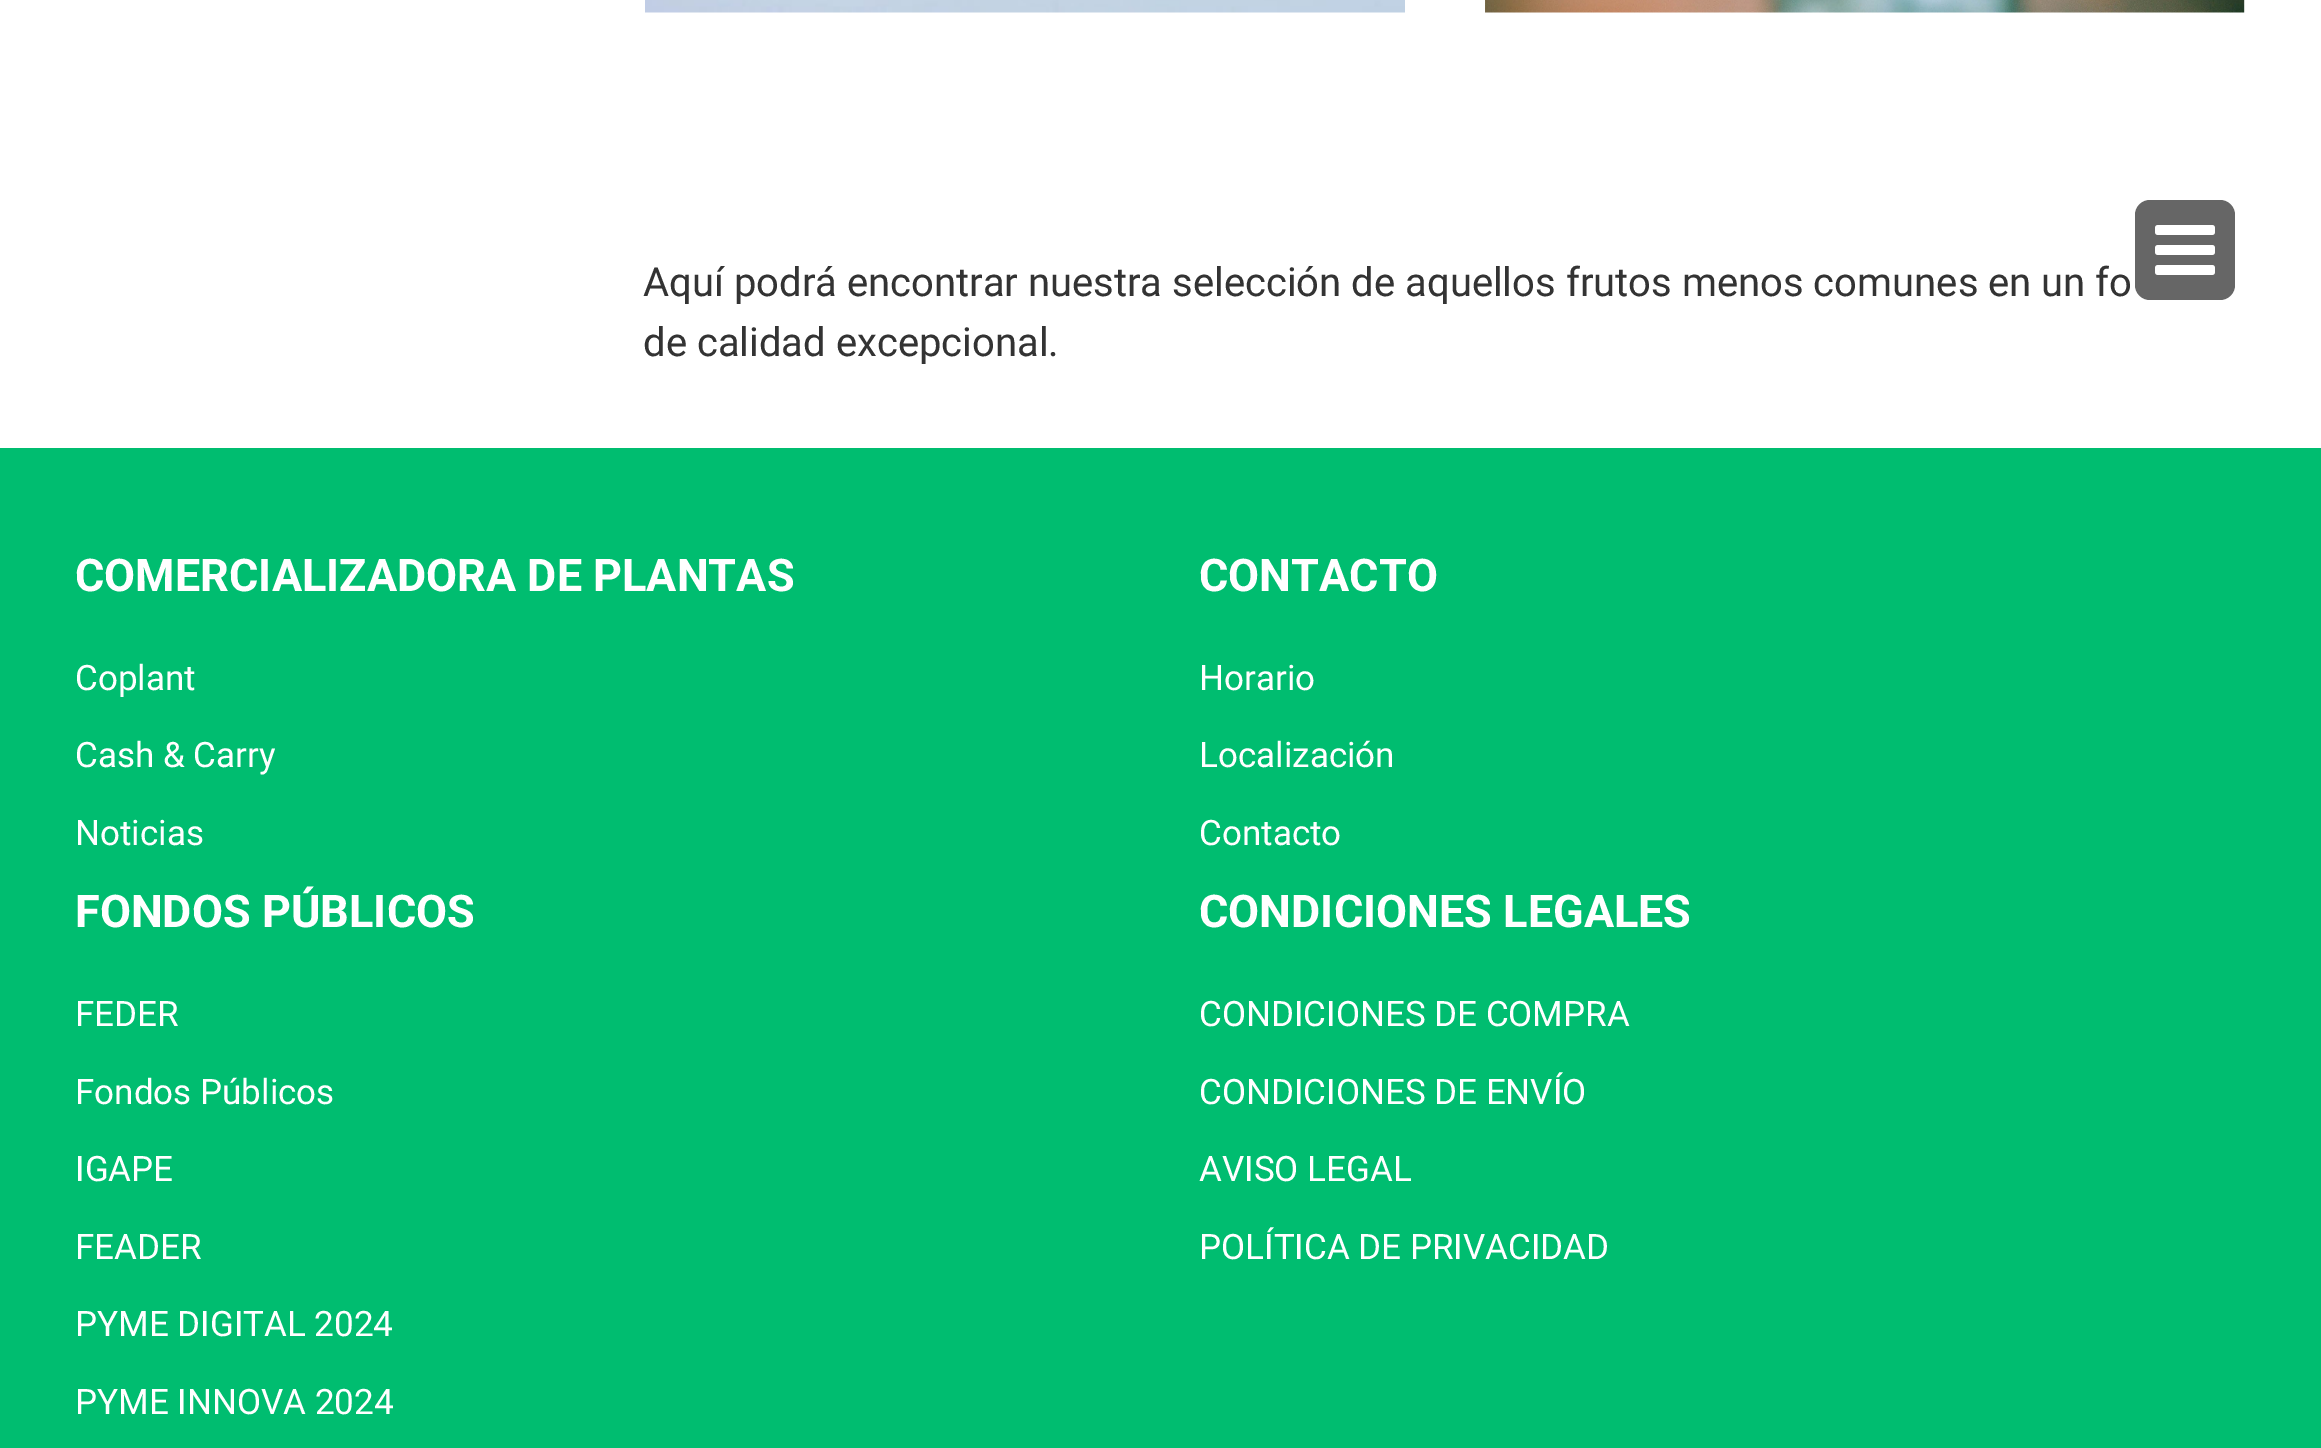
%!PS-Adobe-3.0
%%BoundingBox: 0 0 2321 1448
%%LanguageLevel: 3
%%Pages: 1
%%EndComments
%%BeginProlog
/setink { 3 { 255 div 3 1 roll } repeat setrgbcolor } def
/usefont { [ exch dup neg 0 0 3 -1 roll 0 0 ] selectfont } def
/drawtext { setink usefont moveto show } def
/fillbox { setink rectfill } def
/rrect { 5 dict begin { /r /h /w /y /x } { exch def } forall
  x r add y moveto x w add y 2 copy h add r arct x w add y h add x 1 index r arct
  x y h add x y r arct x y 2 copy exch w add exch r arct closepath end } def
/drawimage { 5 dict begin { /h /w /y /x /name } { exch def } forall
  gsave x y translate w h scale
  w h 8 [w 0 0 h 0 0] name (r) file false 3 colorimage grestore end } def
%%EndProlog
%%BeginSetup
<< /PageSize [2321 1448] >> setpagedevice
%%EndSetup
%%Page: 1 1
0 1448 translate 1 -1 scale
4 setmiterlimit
0 0 2321 1448 255 255 255 fillbox
102 102 102 setink
2135 200 100 100 15 rrect fill
(assets/img1.rgb) 2155 225 60 50 drawimage
(assets/img2.rgb) 645 0 760 13 drawimage
(assets/img3.rgb) 1485 0 760 13 drawimage
(Aquí podrá encontrar nuestra selección de aquellos frutos menos comunes en un fo) 643 296 /Roboto-Regular 40 51 51 51 drawtext
(de calidad excepcional.) 643 356 /Roboto-Regular 40 51 51 51 drawtext
0 448 2321 1000 0 189 112 fillbox
(COMERCIALIZADORA DE PLANTAS) 75 591 /Roboto-Bold 45 255 255 255 drawtext
(Coplant) 75 690 /Roboto-Regular 35 255 255 255 drawtext
(Cash & Carry) 75 767 /Roboto-Regular 35 255 255 255 drawtext
(Noticias) 75 845 /Roboto-Regular 35 255 255 255 drawtext
(CONTACTO) 1199 591 /Roboto-Bold 45 255 255 255 drawtext
(Horario) 1199 690 /Roboto-Regular 35 255 255 255 drawtext
(Localización) 1199 767 /Roboto-Regular 35 255 255 255 drawtext
(Contacto) 1199 845 /Roboto-Regular 35 255 255 255 drawtext
(FONDOS PÚBLICOS) 75 927 /Roboto-Bold 45 255 255 255 drawtext
(FEDER) 75 1026 /Roboto-Regular 35 255 255 255 drawtext
(Fondos Públicos) 75 1104 /Roboto-Regular 35 255 255 255 drawtext
(IGAPE) 75 1181 /Roboto-Regular 35 255 255 255 drawtext
(FEADER) 75 1259 /Roboto-Regular 35 255 255 255 drawtext
(PYME DIGITAL 2024) 75 1336 /Roboto-Regular 35 255 255 255 drawtext
(PYME INNOVA 2024) 75 1414 /Roboto-Regular 35 255 255 255 drawtext
(CONDICIONES LEGALES) 1199 927 /Roboto-Bold 45 255 255 255 drawtext
(CONDICIONES DE COMPRA) 1199 1026 /Roboto-Regular 35 255 255 255 drawtext
(CONDICIONES DE ENVÍO) 1199 1104 /Roboto-Regular 35 255 255 255 drawtext
(AVISO LEGAL) 1199 1181 /Roboto-Regular 35 255 255 255 drawtext
(POLÍTICA DE PRIVACIDAD) 1199 1259 /Roboto-Regular 35 255 255 255 drawtext
showpage
%%EOF
